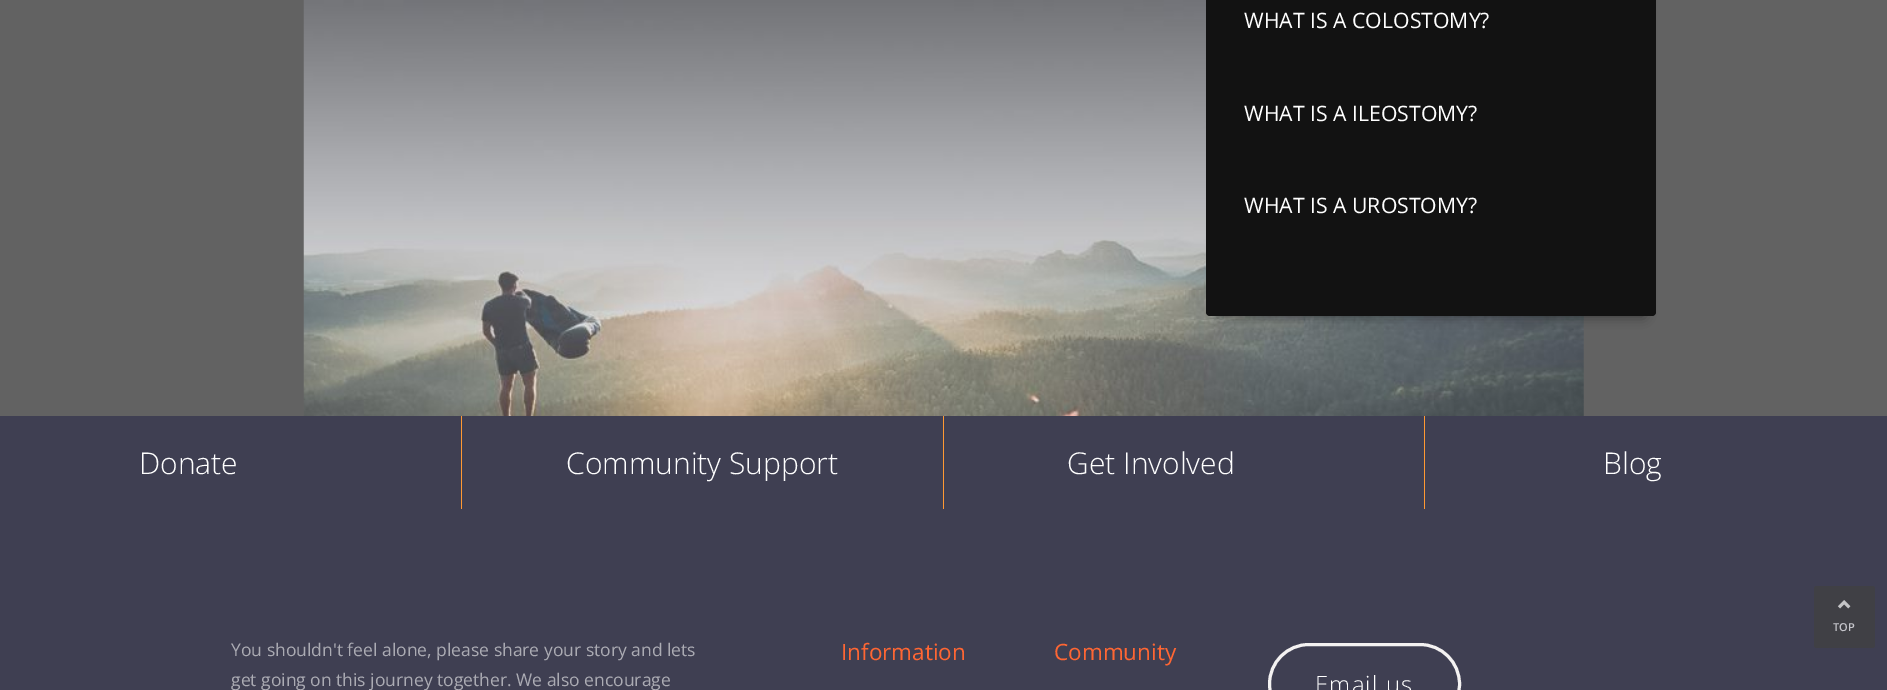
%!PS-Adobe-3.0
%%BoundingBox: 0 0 1887 690
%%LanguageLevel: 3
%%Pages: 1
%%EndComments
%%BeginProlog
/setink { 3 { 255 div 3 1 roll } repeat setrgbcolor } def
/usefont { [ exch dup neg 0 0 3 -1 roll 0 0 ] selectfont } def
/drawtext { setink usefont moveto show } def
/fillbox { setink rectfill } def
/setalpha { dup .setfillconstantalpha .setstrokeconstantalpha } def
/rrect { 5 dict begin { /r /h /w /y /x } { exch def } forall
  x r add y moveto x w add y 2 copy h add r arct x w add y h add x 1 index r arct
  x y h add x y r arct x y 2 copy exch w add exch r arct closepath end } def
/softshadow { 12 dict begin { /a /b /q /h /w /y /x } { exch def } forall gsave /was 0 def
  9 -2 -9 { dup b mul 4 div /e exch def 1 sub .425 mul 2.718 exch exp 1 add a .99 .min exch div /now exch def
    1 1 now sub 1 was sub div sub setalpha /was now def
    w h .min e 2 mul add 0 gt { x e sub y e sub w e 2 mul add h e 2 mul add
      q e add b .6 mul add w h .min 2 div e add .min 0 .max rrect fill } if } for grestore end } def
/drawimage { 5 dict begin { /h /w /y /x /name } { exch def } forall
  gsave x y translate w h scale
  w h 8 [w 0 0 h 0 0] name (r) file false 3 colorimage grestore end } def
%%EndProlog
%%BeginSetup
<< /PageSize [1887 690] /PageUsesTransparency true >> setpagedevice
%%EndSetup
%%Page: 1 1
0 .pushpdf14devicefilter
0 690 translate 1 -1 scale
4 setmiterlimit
0 0 1887 690 98 98 98 fillbox
(assets/img1.rgb) 303 0 1281 416 drawimage
0 0 0 setink
1219 -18 425 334 0 6 0.45 softshadow
18 18 18 setink
1206 -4 450 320 4 rrect fill
(WHAT IS A COLOSTOMY?) 1244 28 /OpenSans-Regular 21.25 255 255 255 drawtext
(WHAT IS A ILEOSTOMY?) 1244 121 /OpenSans-Regular 21.25 255 255 255 drawtext
(WHAT IS A UROSTOMY?) 1244 213 /OpenSans-Regular 21.25 255 255 255 drawtext
0 416 1887 274 63 63 82 fillbox
461 416 1 93 255 153 51 fillbox
(Donate) 139 474 /OpenSans-Light 30 255 255 255 drawtext
943 416 1 93 255 153 51 fillbox
(Community Support) 566 474 /OpenSans-Light 30 255 255 255 drawtext
1424 416 1 93 255 153 51 fillbox
(Get Involved) 1067 474 /OpenSans-Light 30 255 255 255 drawtext
(Blog) 1603 474 /OpenSans-Light 30 255 255 255 drawtext
(You shouldn't feel alone, please share your story and lets) 231 656 /OpenSans-Regular 17.5 171 171 179 drawtext
(get going on this journey together. We also encourage) 231 686 /OpenSans-Regular 17.5 171 171 179 drawtext
(Information) 841 660 /OpenSans-Regular 22.5 255 102 51 drawtext
(Community) 1054 660 /OpenSans-Regular 22.5 255 102 51 drawtext
244 242 242 setink
3 setlinewidth
1269.5 644.5 190 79 39.5 rrect stroke
/OpenSans-Light 23.75 usefont
255 255 255 setink
1315 693 moveto 1.25 0 (Email us) ashow
64 64 69 setink
1814 586 61 62 2.5 rrect fill
(assets/img2.rgb) 1837 600 14 9 drawimage
(TOP) 1833 631 /OpenSans-SemiBold 11 197 197 203 drawtext
.poppdf14devicefilter showpage
%%EOF
